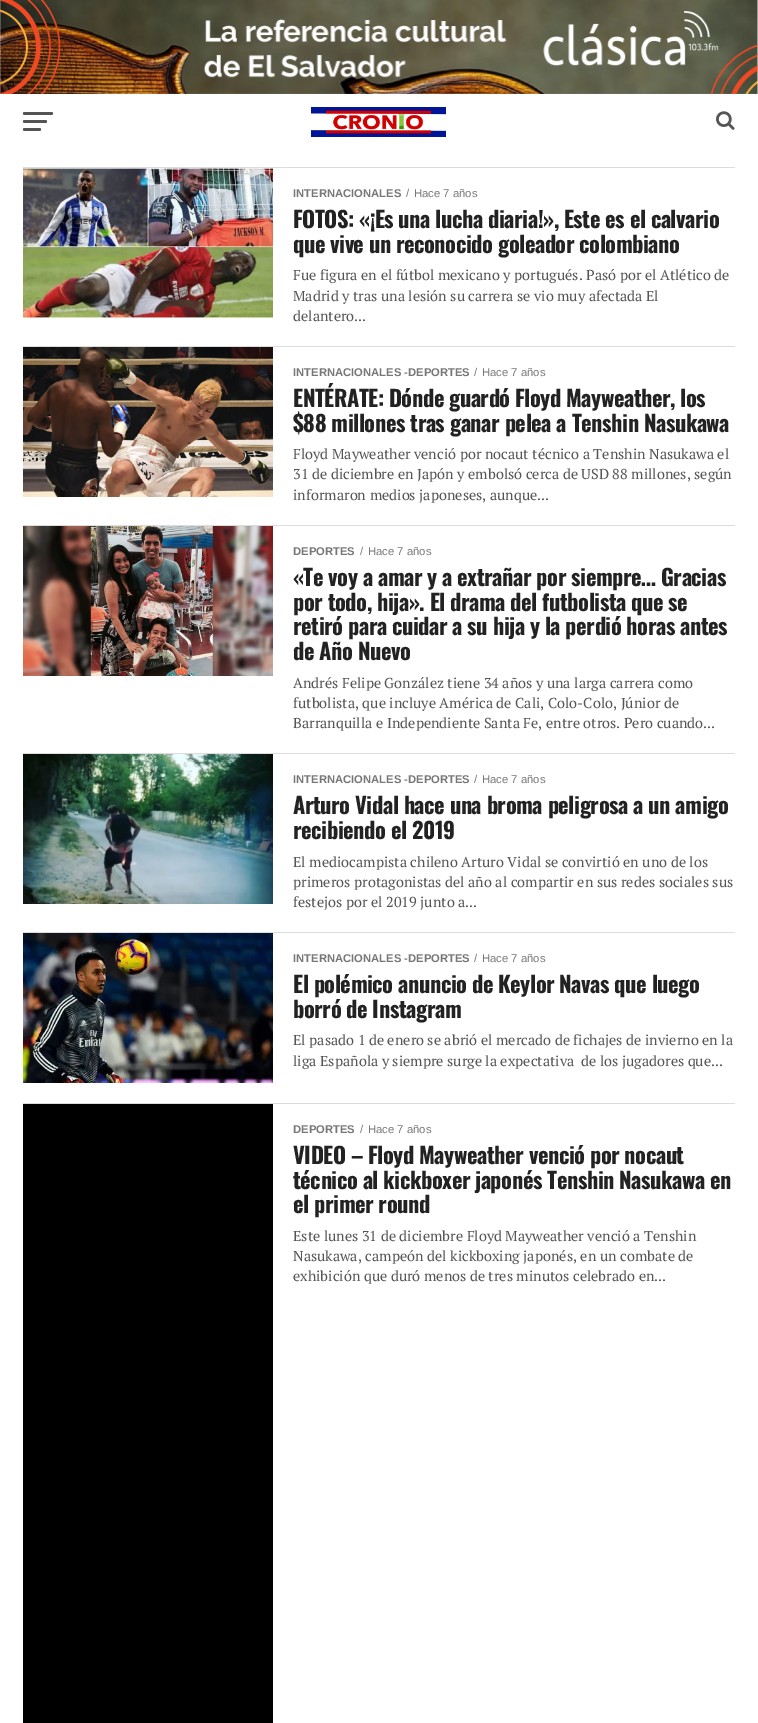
%!PS-Adobe-3.0
%%BoundingBox: 0 0 758 1723
%%LanguageLevel: 3
%%Pages: 1
%%EndComments
%%BeginProlog
/setink { 3 { 255 div 3 1 roll } repeat setrgbcolor } def
/usefont { [ exch dup neg 0 0 3 -1 roll 0 0 ] selectfont } def
/drawtext { setink usefont moveto show } def
/fillbox { setink rectfill } def
/rrect { 5 dict begin { /r /h /w /y /x } { exch def } forall
  x r add y moveto x w add y 2 copy h add r arct x w add y h add x 1 index r arct
  x y h add x y r arct x y 2 copy exch w add exch r arct closepath end } def
/drawimage { 5 dict begin { /h /w /y /x /name } { exch def } forall
  gsave x y translate w h scale
  w h 8 [w 0 0 h 0 0] name (r) file false 3 colorimage grestore end } def
%%EndProlog
%%BeginSetup
<< /PageSize [758 1723] >> setpagedevice
%%EndSetup
%%Page: 1 1
0 1723 translate 1 -1 scale
4 setmiterlimit
0 0 758 1723 255 255 255 fillbox
(assets/img1.rgb) 0 0 758 94 drawimage
85 85 85 setink
23 112 30 3 1.5 rrect fill
23 120 24 3 1.5 rrect fill
23 128 18 3 1.5 rrect fill
(assets/img2.rgb) 311 107 135 30 drawimage
(assets/img3.rgb) 716 111 19 19 drawimage
23 167 712 1 221 221 221 fillbox
(assets/img4.rgb) 23 168 250 150 drawimage
(INTERNACIONALES) 293 197 /LiberationSans-Bold 11.25 119 119 119 drawtext
(/) 406 197 /LiberationSans-Regular 11.25 119 119 119 drawtext
(Hace 7 años) 414 197 /LiberationSans-Regular 11.25 119 119 119 drawtext
/Oswald-Bold 22.4 usefont
34 34 34 setink
293 228 moveto -0.45 0 (FOTOS: «¡Es una lucha diaria!», Este es el calvario) ashow
293 253 moveto -0.45 0 (que vive un reconocido goleador colombiano) ashow
(Fue figura en el fútbol mexicano y portugués. Pasó por el Atlético de) 293 280 /PTSerif-Regular 14.4 85 85 85 drawtext
(Madrid y tras una lesión su carrera se vio muy afectada El) 293 301 /PTSerif-Regular 14.4 85 85 85 drawtext
(delantero...) 293 321 /PTSerif-Regular 14.4 85 85 85 drawtext
23 346 712 1 221 221 221 fillbox
(assets/img5.rgb) 23 347 250 150 drawimage
(INTERNACIONALES -DEPORTES) 293 376 /LiberationSans-Bold 11.25 119 119 119 drawtext
(/) 474 376 /LiberationSans-Regular 11.25 119 119 119 drawtext
(Hace 7 años) 482 376 /LiberationSans-Regular 11.25 119 119 119 drawtext
/Oswald-Bold 22.4 usefont
34 34 34 setink
293 407 moveto -0.45 0 (ENTÉRATE: Dónde guardó Floyd Mayweather, los) ashow
293 432 moveto -0.45 0 ($88 millones tras ganar pelea a Tenshin Nasukawa) ashow
(Floyd Mayweather venció por nocaut técnico a Tenshin Nasukawa el) 293 459 /PTSerif-Regular 14.4 85 85 85 drawtext
(31 de diciembre en Japón y embolsó cerca de USD 88 millones, según) 293 479 /PTSerif-Regular 14.4 85 85 85 drawtext
(informaron medios japoneses, aunque...) 293 500 /PTSerif-Regular 14.4 85 85 85 drawtext
23 525 712 1 221 221 221 fillbox
(assets/img6.rgb) 23 526 250 150 drawimage
(DEPORTES) 293 555 /LiberationSans-Bold 11.25 119 119 119 drawtext
(/) 360 555 /LiberationSans-Regular 11.25 119 119 119 drawtext
(Hace 7 años) 368 555 /LiberationSans-Regular 11.25 119 119 119 drawtext
/Oswald-Bold 22.4 usefont
34 34 34 setink
293 586 moveto -0.45 0 («Te voy a amar y a extrañar por siempre… Gracias) ashow
293 611 moveto -0.45 0 (por todo, hija». El drama del futbolista que se) ashow
293 635 moveto -0.45 0 (retiró para cuidar a su hija y la perdió horas antes) ashow
293 660 moveto -0.45 0 (de Año Nuevo) ashow
(Andrés Felipe González tiene 34 años y una larga carrera como) 293 688 /PTSerif-Regular 14.4 85 85 85 drawtext
(futbolista, que incluye América de Cali, Colo-Colo, Júnior de) 293 708 /PTSerif-Regular 14.4 85 85 85 drawtext
(Barranquilla e Independiente Santa Fe, entre otros. Pero cuando...) 293 728 /PTSerif-Regular 14.4 85 85 85 drawtext
23 753 712 1 221 221 221 fillbox
(assets/img7.rgb) 23 754 250 150 drawimage
(INTERNACIONALES -DEPORTES) 293 783 /LiberationSans-Bold 11.25 119 119 119 drawtext
(/) 474 783 /LiberationSans-Regular 11.25 119 119 119 drawtext
(Hace 7 años) 482 783 /LiberationSans-Regular 11.25 119 119 119 drawtext
/Oswald-Bold 22.4 usefont
34 34 34 setink
293 814 moveto -0.45 0 (Arturo Vidal hace una broma peligrosa a un amigo) ashow
293 839 moveto -0.45 0 (recibiendo el 2019) ashow
(El mediocampista chileno Arturo Vidal se convirtió en uno de los) 293 867 /PTSerif-Regular 14.4 85 85 85 drawtext
(primeros protagonistas del año al compartir en sus redes sociales sus) 293 887 /PTSerif-Regular 14.4 85 85 85 drawtext
(festejos por el 2019 junto a...) 293 907 /PTSerif-Regular 14.4 85 85 85 drawtext
23 932 712 1 221 221 221 fillbox
(assets/img8.rgb) 23 933 250 150 drawimage
(INTERNACIONALES -DEPORTES) 293 962 /LiberationSans-Bold 11.25 119 119 119 drawtext
(/) 474 962 /LiberationSans-Regular 11.25 119 119 119 drawtext
(Hace 7 años) 482 962 /LiberationSans-Regular 11.25 119 119 119 drawtext
/Oswald-Bold 22.4 usefont
34 34 34 setink
293 993 moveto -0.45 0 (El polémico anuncio de Keylor Navas que luego) ashow
293 1018 moveto -0.45 0 (borró de Instagram) ashow
(El pasado 1 de enero se abrió el mercado de fichajes de invierno en la) 293 1045 /PTSerif-Regular 14.4 85 85 85 drawtext
(liga Española y siempre surge la expectativa  de los jugadores que...) 293 1066 /PTSerif-Regular 14.4 85 85 85 drawtext
23 1103 712 1 221 221 221 fillbox
23 1104 250 619 0 0 0 fillbox
(DEPORTES) 293 1133 /LiberationSans-Bold 11.25 119 119 119 drawtext
(/) 360 1133 /LiberationSans-Regular 11.25 119 119 119 drawtext
(Hace 7 años) 368 1133 /LiberationSans-Regular 11.25 119 119 119 drawtext
/Oswald-Bold 22.4 usefont
34 34 34 setink
293 1164 moveto -0.45 0 (VIDEO – Floyd Mayweather venció por nocaut) ashow
293 1189 moveto -0.45 0 (técnico al kickboxer japonés Tenshin Nasukawa en) ashow
293 1213 moveto -0.45 0 (el primer round) ashow
(Este lunes 31 de diciembre Floyd Mayweather venció a Tenshin) 293 1241 /PTSerif-Regular 14.4 85 85 85 drawtext
(Nasukawa, campeón del kickboxing japonés, en un combate de) 293 1261 /PTSerif-Regular 14.4 85 85 85 drawtext
(exhibición que duró menos de tres minutos celebrado en...) 293 1281 /PTSerif-Regular 14.4 85 85 85 drawtext
showpage
%%EOF
